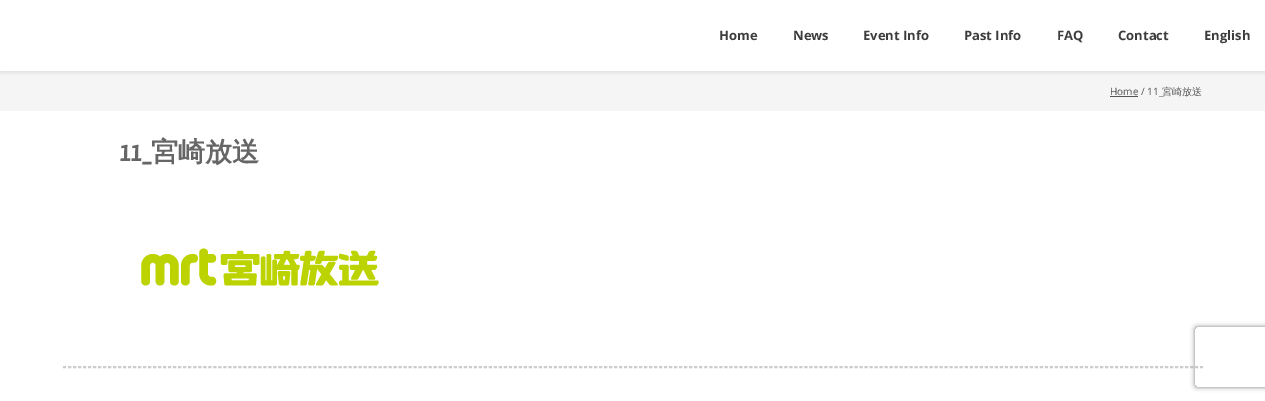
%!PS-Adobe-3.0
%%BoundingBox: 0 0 1265 401
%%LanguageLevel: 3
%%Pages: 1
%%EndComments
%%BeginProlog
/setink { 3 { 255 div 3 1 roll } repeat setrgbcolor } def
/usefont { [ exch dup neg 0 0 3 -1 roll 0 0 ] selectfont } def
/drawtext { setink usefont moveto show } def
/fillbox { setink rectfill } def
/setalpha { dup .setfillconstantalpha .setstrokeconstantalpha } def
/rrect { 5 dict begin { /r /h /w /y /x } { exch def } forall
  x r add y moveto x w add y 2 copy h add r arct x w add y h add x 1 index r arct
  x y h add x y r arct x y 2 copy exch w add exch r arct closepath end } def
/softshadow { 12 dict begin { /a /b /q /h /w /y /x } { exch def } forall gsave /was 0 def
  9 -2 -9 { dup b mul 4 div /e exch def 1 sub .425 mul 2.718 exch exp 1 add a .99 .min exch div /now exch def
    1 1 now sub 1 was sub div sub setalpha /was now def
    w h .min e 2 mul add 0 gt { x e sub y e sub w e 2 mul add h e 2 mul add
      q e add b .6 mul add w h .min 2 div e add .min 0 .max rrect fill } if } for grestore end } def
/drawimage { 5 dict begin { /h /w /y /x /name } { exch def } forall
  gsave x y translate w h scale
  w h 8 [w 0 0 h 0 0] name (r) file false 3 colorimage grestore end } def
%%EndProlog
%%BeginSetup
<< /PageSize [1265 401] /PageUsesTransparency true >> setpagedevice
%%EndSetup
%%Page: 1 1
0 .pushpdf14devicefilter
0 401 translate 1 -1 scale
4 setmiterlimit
0 0 1265 401 255 255 255 fillbox
0 71 1265 40 245 245 245 fillbox
gsave
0 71 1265 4 rectclip
100 100 100 setink
1 1 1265 71 0 2.5 0.2 softshadow
grestore
(Home) 719 40 /OpenSans-Bold 13 61 61 61 drawtext
(News) 793 40 /OpenSans-Bold 13 61 61 61 drawtext
(Event Info) 863 40 /OpenSans-Bold 13 61 61 61 drawtext
(Past Info) 964 40 /OpenSans-Bold 13 61 61 61 drawtext
(FAQ) 1057 40 /OpenSans-Bold 13 61 61 61 drawtext
(Contact) 1118 40 /OpenSans-Bold 13 61 61 61 drawtext
(English) 1204 40 /OpenSans-Bold 13 61 61 61 drawtext
1110 96 28 1 85 85 85 fillbox
(Home / 11_) 1110 95 /OpenSans-Regular 10 85 85 85 drawtext
(宮崎放送) 1162 95 /WenQuanYiZenHei-Medium 10 85 85 85 drawtext
(11_) 120 161 /YanoneKaffeesatz-Bold 27 102 102 102 drawtext
(宮崎放送) 151 161 /WenQuanYiZenHei-Bold 27 102 102 102 drawtext
(assets/img1.rgb) 141 248 240 40 drawimage
204 204 204 setink
[3 2.01] 0 setdash
63 366.5 moveto 1203 366.5 lineto stroke
63 367.5 moveto 1203 367.5 lineto stroke
gsave
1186 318 moveto 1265 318 lineto 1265 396 lineto 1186 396 lineto closepath 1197 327 moveto 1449 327 lineto 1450 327 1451 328 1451 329 curveto 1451 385 lineto 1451 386 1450 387 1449 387 curveto 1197 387 lineto 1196 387 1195 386 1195 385 curveto 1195 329 lineto 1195 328 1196 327 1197 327 curveto closepath eoclip newpath
128 128 128 setink
1195 327 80 60 2 2.5 1 softshadow
grestore
.poppdf14devicefilter showpage
%%EOF
